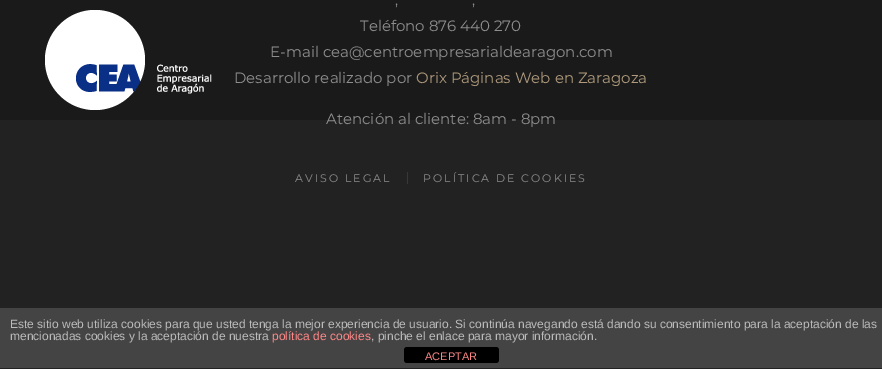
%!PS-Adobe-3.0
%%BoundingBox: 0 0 882 369
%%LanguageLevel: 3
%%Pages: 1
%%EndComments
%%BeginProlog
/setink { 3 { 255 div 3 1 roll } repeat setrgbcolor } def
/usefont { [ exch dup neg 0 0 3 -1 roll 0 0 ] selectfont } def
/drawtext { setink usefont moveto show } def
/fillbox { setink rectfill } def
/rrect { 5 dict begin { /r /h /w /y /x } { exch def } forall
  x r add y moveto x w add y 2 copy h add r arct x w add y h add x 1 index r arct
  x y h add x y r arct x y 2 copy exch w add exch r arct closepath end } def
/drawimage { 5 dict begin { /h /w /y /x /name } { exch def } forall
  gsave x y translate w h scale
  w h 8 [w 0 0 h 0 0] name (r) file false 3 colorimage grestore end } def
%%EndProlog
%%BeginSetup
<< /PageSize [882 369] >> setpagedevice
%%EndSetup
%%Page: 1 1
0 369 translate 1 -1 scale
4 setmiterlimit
0 0 882 369 34 34 34 fillbox
0 0 882 120 26 26 26 fillbox
(assets/img1.rgb) 45 10 167 100 drawimage
(,) 395 5 /Montserrat-Thin 15 142 142 142 drawtext
(,) 472 5 /Montserrat-Thin 15 142 142 142 drawtext
(Teléfono 876 440 270) 360 31 /Montserrat-Thin 15 142 142 142 drawtext
(E-mail cea@centroempresarialdearagon.com) 270 57 /Montserrat-Thin 15 142 142 142 drawtext
(Desarrollo realizado por) 234 83 /Montserrat-Thin 15 142 142 142 drawtext
(Orix Páginas Web en Zaragoza) 416 83 /Montserrat-Thin 15 175 154 125 drawtext
(Atención al cliente: 8am - 8pm) 326 124 /Montserrat-Thin 15 142 142 142 drawtext
/Montserrat-Thin 11 usefont
295 182 moveto 2 0 (AVISO LEGAL) ashow
407 172 1 12 56 56 56 fillbox
142 142 142 setink
423 182 moveto 2 0 (POLÍTICA DE COOKIES) ashow
0 308 882 60 68 68 68 fillbox
(Este sitio web utiliza cookies para que usted tenga la mejor experiencia de usuario. Si continúa navegando está dando su consentimiento para la aceptación de las) 10 328 /LiberationSans-Regular 12 187 187 187 drawtext
(mencionadas cookies y la aceptación de nuestra) 10 340 /LiberationSans-Regular 12 187 187 187 drawtext
(política de cookies) 272 340 /LiberationSans-Regular 12 255 136 136 drawtext
(, pinche el enlace para mayor información.) 371 340 /LiberationSans-Regular 12 187 187 187 drawtext
0 0 0 setink
404 347 95 16 3 rrect fill
(ACEPTAR) 425 360 /LiberationSans-Regular 11 255 136 136 drawtext
showpage
%%EOF
